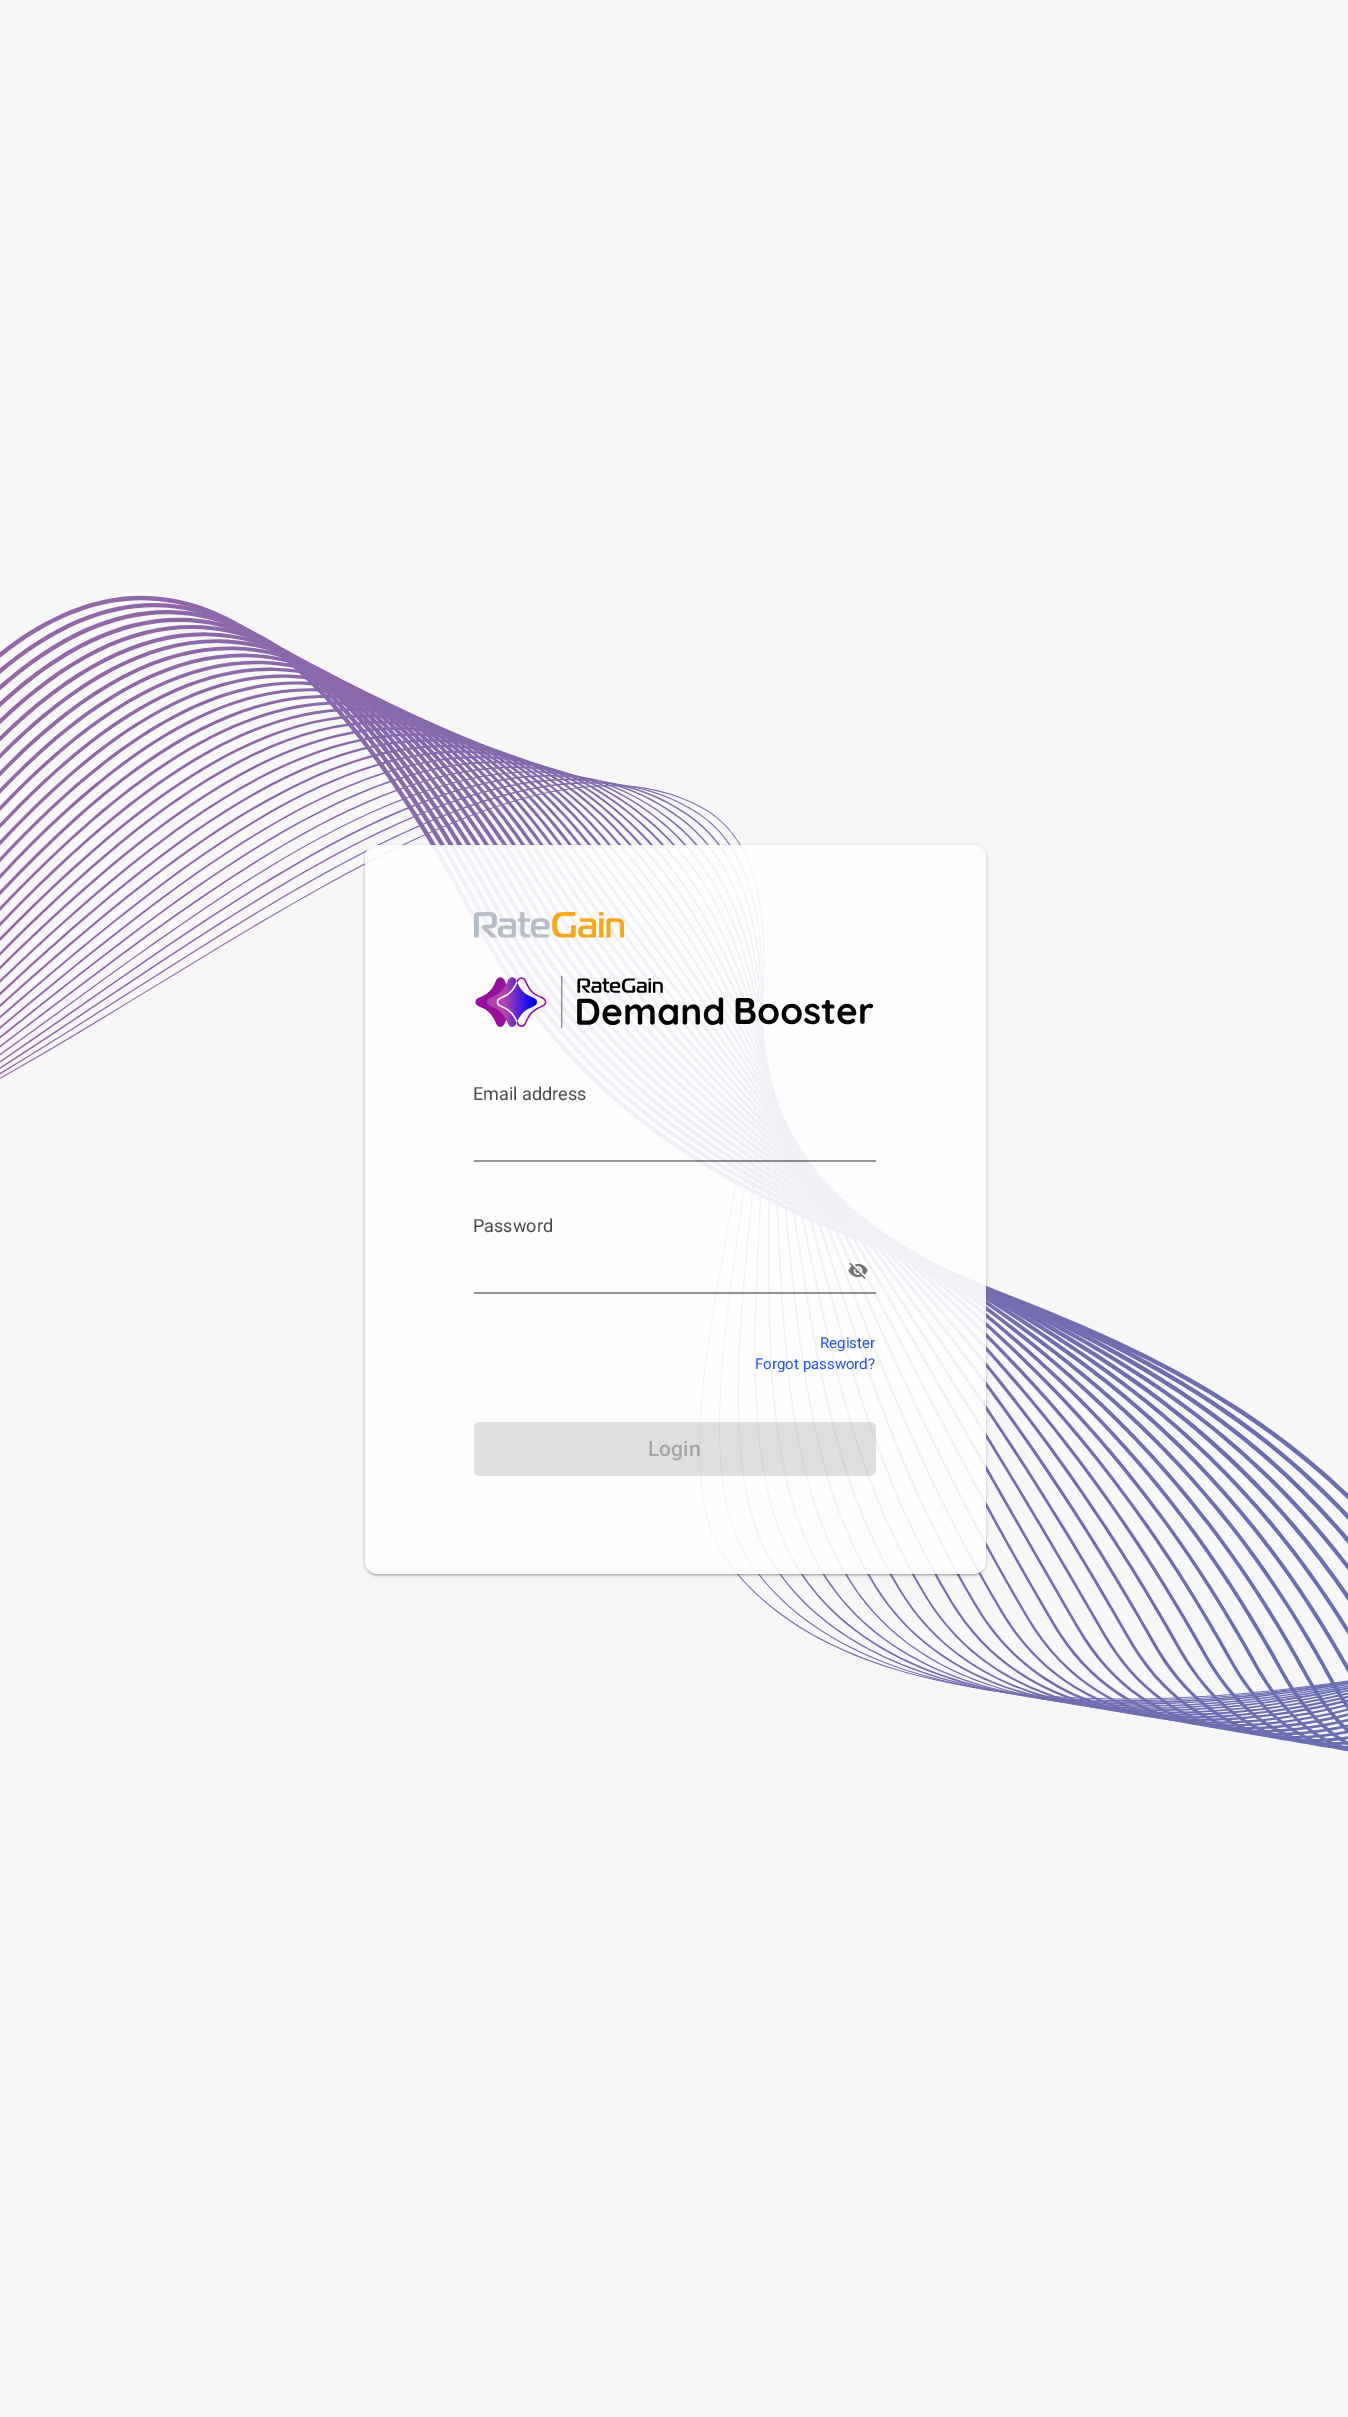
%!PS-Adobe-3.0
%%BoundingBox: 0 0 1348 2417
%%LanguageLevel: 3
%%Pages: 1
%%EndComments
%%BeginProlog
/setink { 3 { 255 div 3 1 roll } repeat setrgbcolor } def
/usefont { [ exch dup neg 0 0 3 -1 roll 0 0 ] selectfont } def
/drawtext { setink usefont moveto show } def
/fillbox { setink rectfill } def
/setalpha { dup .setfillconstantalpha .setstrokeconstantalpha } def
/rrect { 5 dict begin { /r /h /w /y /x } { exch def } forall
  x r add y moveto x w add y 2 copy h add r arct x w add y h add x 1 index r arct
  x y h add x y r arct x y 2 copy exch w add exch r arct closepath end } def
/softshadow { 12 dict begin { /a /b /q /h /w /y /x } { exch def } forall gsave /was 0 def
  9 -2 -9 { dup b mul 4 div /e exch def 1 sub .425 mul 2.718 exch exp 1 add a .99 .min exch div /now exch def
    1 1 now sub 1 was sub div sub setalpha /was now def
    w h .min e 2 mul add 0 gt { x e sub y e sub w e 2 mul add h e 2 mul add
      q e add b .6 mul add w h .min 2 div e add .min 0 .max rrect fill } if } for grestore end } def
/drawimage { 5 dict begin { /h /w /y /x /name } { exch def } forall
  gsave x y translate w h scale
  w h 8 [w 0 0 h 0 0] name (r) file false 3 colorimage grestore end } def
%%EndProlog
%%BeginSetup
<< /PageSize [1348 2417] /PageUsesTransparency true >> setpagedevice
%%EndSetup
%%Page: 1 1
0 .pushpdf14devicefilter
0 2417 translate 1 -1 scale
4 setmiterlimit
0 0 1348 2417 255 255 255 fillbox
(assets/img1.rgb) 0 0 1348 2417 drawimage
gsave
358 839 moveto 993 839 lineto 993 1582 lineto 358 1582 lineto closepath 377 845 moveto 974 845 lineto 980.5 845 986 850.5 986 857 curveto 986 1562 lineto 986 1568.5 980.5 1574 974 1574 curveto 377 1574 lineto 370.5 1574 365 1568.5 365 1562 curveto 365 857 lineto 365 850.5 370.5 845 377 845 curveto closepath eoclip newpath
0 0 0 setink
365 846 621 729 12 2 0.12 softshadow
grestore
gsave
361 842 moveto 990 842 lineto 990 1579 lineto 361 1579 lineto closepath 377 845 moveto 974 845 lineto 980.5 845 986 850.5 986 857 curveto 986 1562 lineto 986 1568.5 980.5 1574 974 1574 curveto 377 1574 lineto 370.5 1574 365 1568.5 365 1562 curveto 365 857 lineto 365 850.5 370.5 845 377 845 curveto closepath eoclip newpath
0 0 0 setink
365 846 621 729 12 1 0.14 softshadow
grestore
gsave
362 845 moveto 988 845 lineto 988 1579 lineto 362 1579 lineto closepath 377 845 moveto 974 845 lineto 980.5 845 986 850.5 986 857 curveto 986 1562 lineto 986 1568.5 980.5 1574 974 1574 curveto 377 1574 lineto 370.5 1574 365 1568.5 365 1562 curveto 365 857 lineto 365 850.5 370.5 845 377 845 curveto closepath eoclip newpath
0 0 0 setink
366 849 618 726 11 1 0.2 softshadow
grestore
0.9 setalpha
365 845 621 729 12 rrect fill
1 setalpha
(assets/img2.rgb) 474 912 150 26 drawimage
(assets/img3.rgb) 475 976 399 53 drawimage
(Email address) 473 1100 /Roboto-Regular 18 75 75 74 drawtext
0.42 setalpha
474 1160 402 2 0 0 0 fillbox
1 setalpha
(Password) 473 1232 /Roboto-Regular 18 75 75 74 drawtext
(assets/img4.rgb) 848 1262 20 18 drawimage
0.42 setalpha
474 1292 402 2 0 0 0 fillbox
1 setalpha
(Register) 820 1348 /Roboto-Regular 15 39 83 235 drawtext
(Forgot password?) 755 1369 /Roboto-Regular 15 39 83 235 drawtext
0.12 setalpha
0 0 0 setink
474 1422 402 54 6 rrect fill
1 setalpha
(Login) 648 1456 /Roboto-Medium 21 165 165 165 drawtext
.poppdf14devicefilter showpage
%%EOF
